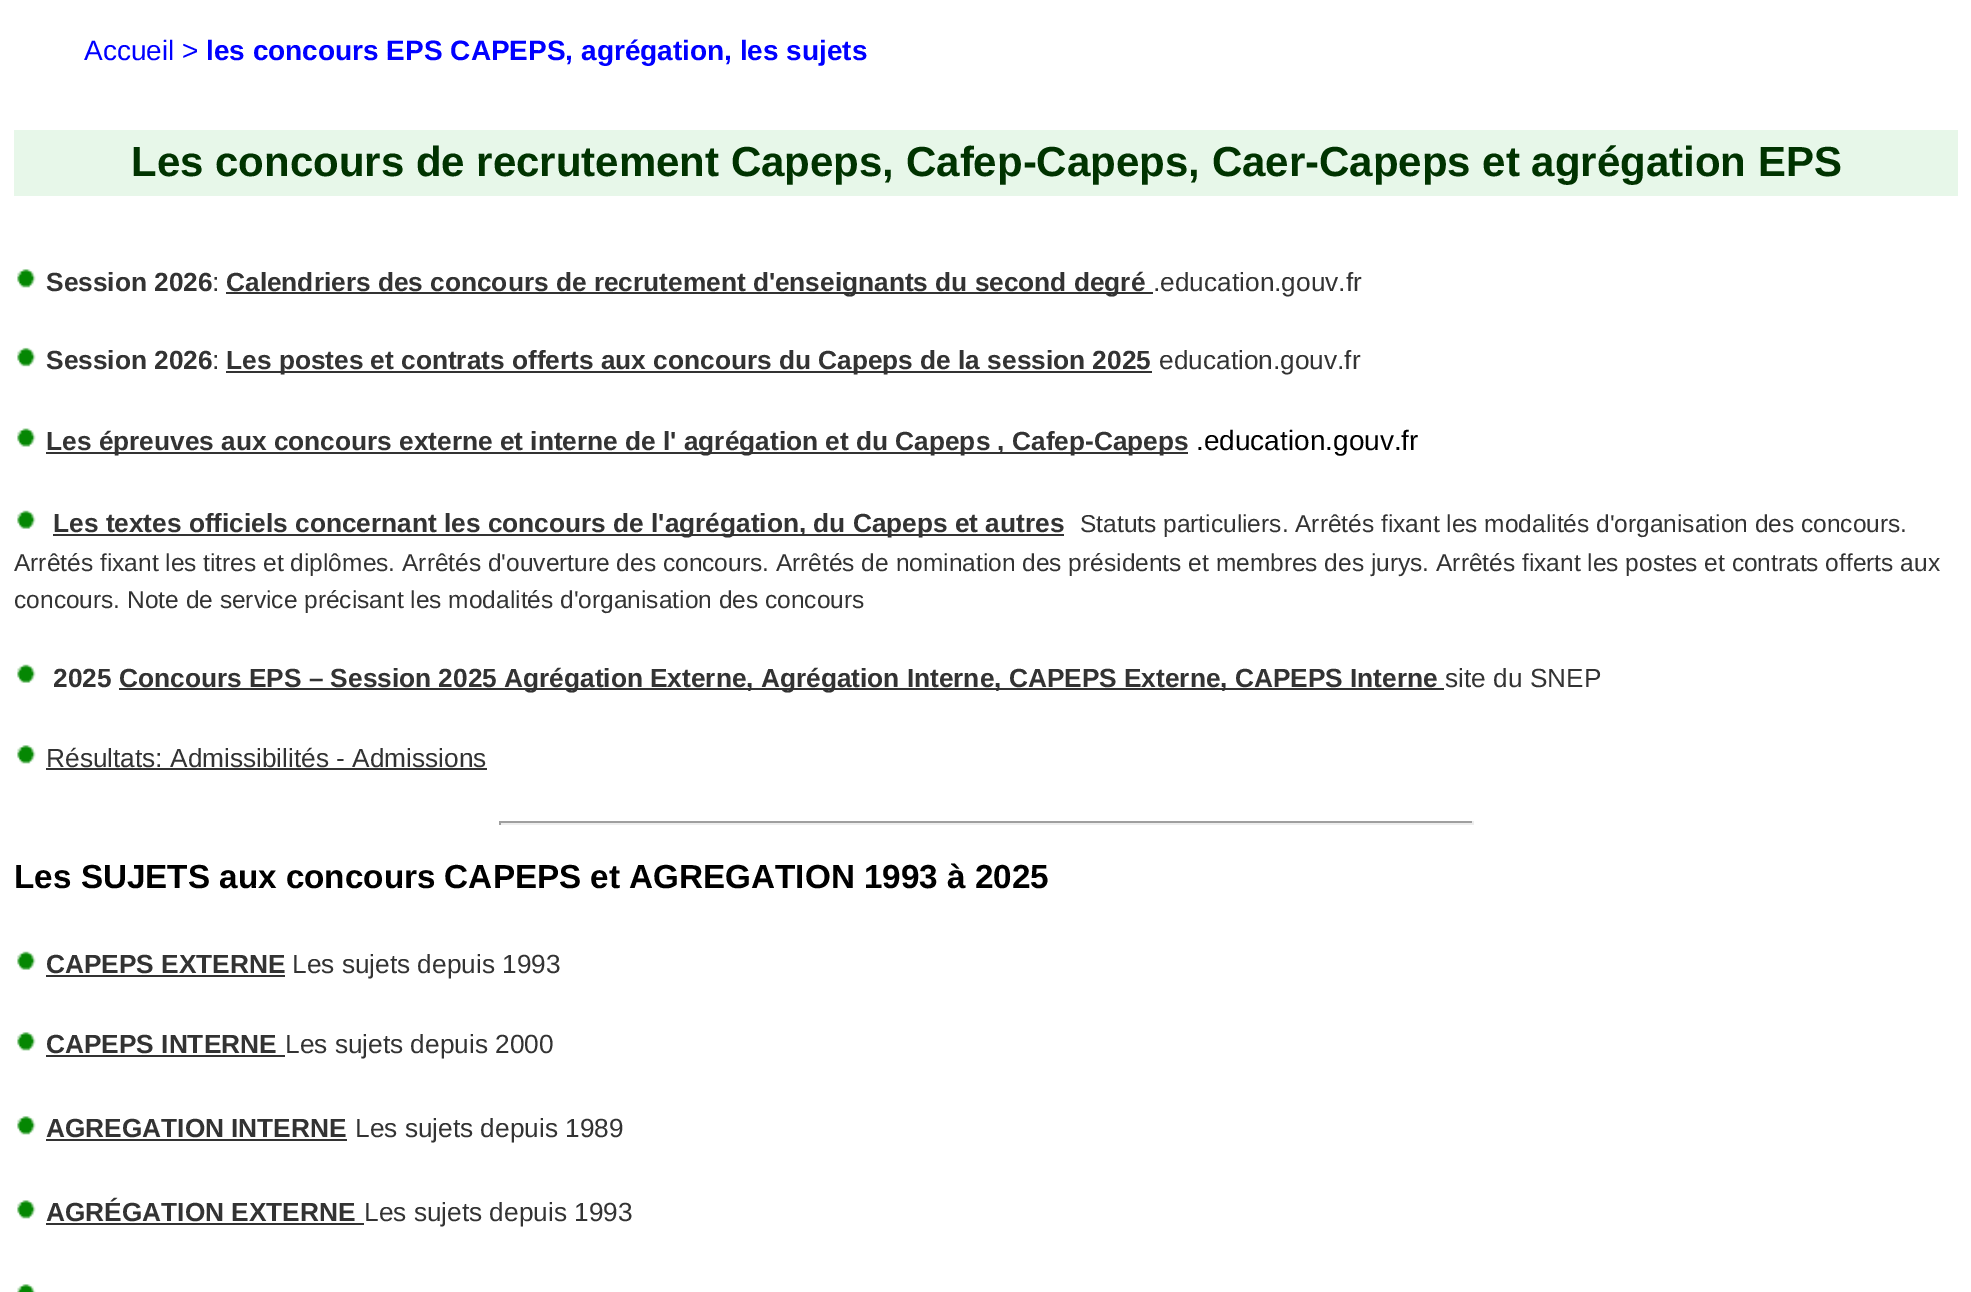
%!PS-Adobe-3.0
%%BoundingBox: 0 0 1971 1292
%%LanguageLevel: 3
%%Pages: 1
%%EndComments
%%BeginProlog
/setink { 3 { 255 div 3 1 roll } repeat setrgbcolor } def
/usefont { [ exch dup neg 0 0 3 -1 roll 0 0 ] selectfont } def
/drawtext { setink usefont moveto show } def
/fillbox { setink rectfill } def
/drawimage { 5 dict begin { /h /w /y /x /name } { exch def } forall
  gsave x y translate w h scale
  w h 8 [w 0 0 h 0 0] name (r) file false 3 colorimage grestore end } def
%%EndProlog
%%BeginSetup
<< /PageSize [1971 1292] >> setpagedevice
%%EndSetup
%%Page: 1 1
0 1292 translate 1 -1 scale
4 setmiterlimit
0 0 1971 1292 255 255 255 fillbox
(Accueil >) 84 60 /LiberationSans-Regular 28 0 0 255 drawtext
(les concours EPS CAPEPS, agrégation, les sujets) 206 60 /LiberationSans-Bold 28 0 0 255 drawtext
14 130 1944 66 231 247 233 fillbox
(Les concours de recrutement Capeps, Cafep-Capeps, Caer-Capeps et agrégation EPS) 131 176 /LiberationSans-Bold 42 0 51 0 drawtext
(assets/img1.rgb) 17 269 19 19 drawimage
(Session 2026) 46 291 /LiberationSans-Bold 26.25 51 51 51 drawtext
(:) 212 291 /LiberationSans-Regular 26.25 51 51 51 drawtext
226 292 927 2 51 51 51 fillbox
(Calendriers des concours de recrutement d'enseignants du second degré) 226 291 /LiberationSans-Bold 26.25 51 51 51 drawtext
(.education.gouv.fr) 1153 291 /LiberationSans-Regular 26.25 51 51 51 drawtext
(assets/img2.rgb) 17 347 19 20 drawimage
(Session 2026) 46 369 /LiberationSans-Bold 26.25 51 51 51 drawtext
(:) 212 369 /LiberationSans-Regular 26.25 51 51 51 drawtext
226 371 926 2 51 51 51 fillbox
(Les postes et contrats offerts aux concours du Capeps de la session 2025) 226 369 /LiberationSans-Bold 26.25 51 51 51 drawtext
(education.gouv.fr) 1159 369 /LiberationSans-Regular 26.25 51 51 51 drawtext
(assets/img3.rgb) 17 428 19 19 drawimage
46 452 1142 2 51 51 51 fillbox
(Les épreuves aux concours externe et interne de l' agrégation et du Capeps , Cafep-Capeps) 46 450 /LiberationSans-Bold 26.25 51 51 51 drawtext
(.education.gouv.fr) 1196 450 /LiberationSans-Regular 28 0 0 0 drawtext
(assets/img4.rgb) 17 510 19 19 drawimage
53 534 1011 2 51 51 51 fillbox
(Les textes officiels concernant les concours de l'agrégation, du Capeps et autres) 53 532 /LiberationSans-Bold 26.25 51 51 51 drawtext
(Statuts particuliers. Arrêtés fixant les modalités d'organisation des concours.) 1080 532 /LiberationSans-Regular 24.5 51 51 51 drawtext
(Arrêtés fixant les titres et diplômes. Arrêtés d'ouverture des concours. Arrêtés de nomination des présidents et membres des jurys. Arrêtés fixant les postes et contrats offerts aux) 14 571 /LiberationSans-Regular 24.5 51 51 51 drawtext
(concours. Note de service précisant les modalités d'organisation des concours) 14 608 /LiberationSans-Regular 24.5 51 51 51 drawtext
(assets/img4.rgb) 17 664 19 19 drawimage
(2025) 53 687 /LiberationSans-Bold 26.25 51 51 51 drawtext
119 688 1325 2 51 51 51 fillbox
(Concours EPS – Session 2025 Agrégation Externe, Agrégation Interne, CAPEPS Externe, CAPEPS Interne) 119 687 /LiberationSans-Bold 26.25 51 51 51 drawtext
(site du SNEP) 1445 687 /LiberationSans-Regular 26.25 51 51 51 drawtext
(assets/img1.rgb) 17 745 19 19 drawimage
(Résultats: Admissibilités - Admissions) 46 767 /LiberationSans-Regular 26.25 51 51 51 drawtext
46 768 441 2 51 51 51 fillbox
499 821 975 2 159 159 159 fillbox
1472 821 2 4 238 238 238 fillbox
499 823 975 2 238 238 238 fillbox
499 821 2 4 159 159 159 fillbox
(Les SUJETS aux concours CAPEPS et AGREGATION 1993 à 2025) 14 888 /LiberationSans-Bold 33.25 0 0 0 drawtext
(assets/img4.rgb) 17 951 19 19 drawimage
(CAPEPS EXTERNE) 46 973 /LiberationSans-Bold 26.25 51 51 51 drawtext
46 975 239 2 51 51 51 fillbox
(Les sujets depuis 1993) 292 973 /LiberationSans-Regular 26.25 51 51 51 drawtext
(assets/img1.rgb) 17 1032 19 19 drawimage
(CAPEPS INTERNE) 46 1053 /LiberationSans-Bold 26.25 51 51 51 drawtext
46 1055 239 2 51 51 51 fillbox
(Les sujets depuis 2000) 285 1053 /LiberationSans-Regular 26.25 51 51 51 drawtext
(assets/img1.rgb) 17 1116 19 19 drawimage
(AGREGATION INTERNE) 46 1137 /LiberationSans-Bold 26.25 51 51 51 drawtext
46 1139 301 2 51 51 51 fillbox
(Les sujets depuis 1989) 355 1137 /LiberationSans-Regular 26.25 51 51 51 drawtext
(assets/img1.rgb) 17 1200 19 19 drawimage
(AGRÉGATION EXTERNE) 46 1221 /LiberationSans-Bold 26.25 51 51 51 drawtext
46 1223 318 2 51 51 51 fillbox
(Les sujets depuis 1993) 364 1221 /LiberationSans-Regular 26.25 51 51 51 drawtext
(assets/img5.rgb) 17 1284 19 8 drawimage
showpage
%%EOF
